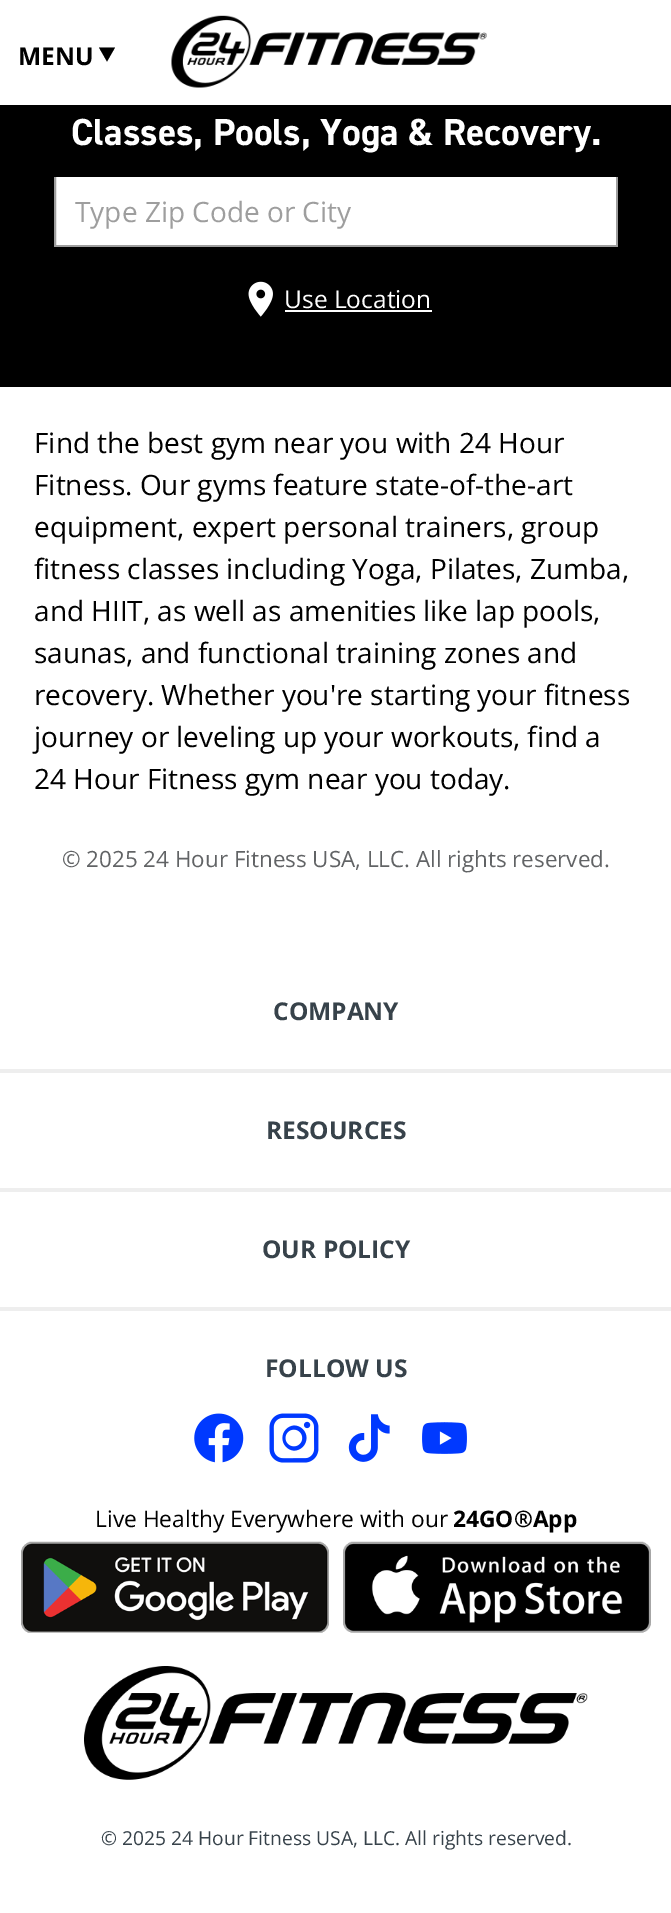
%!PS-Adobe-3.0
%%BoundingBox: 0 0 671 1913
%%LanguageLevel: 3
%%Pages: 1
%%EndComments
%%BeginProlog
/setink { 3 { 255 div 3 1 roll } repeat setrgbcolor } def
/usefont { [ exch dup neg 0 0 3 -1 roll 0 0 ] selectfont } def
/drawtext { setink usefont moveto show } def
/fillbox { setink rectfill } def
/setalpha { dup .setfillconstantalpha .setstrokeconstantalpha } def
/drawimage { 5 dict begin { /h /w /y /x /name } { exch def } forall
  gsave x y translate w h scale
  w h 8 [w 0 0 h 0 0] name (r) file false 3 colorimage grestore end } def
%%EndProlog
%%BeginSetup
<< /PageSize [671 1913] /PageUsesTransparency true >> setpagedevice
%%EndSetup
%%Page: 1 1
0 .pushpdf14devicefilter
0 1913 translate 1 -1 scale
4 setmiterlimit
0 0 671 1913 255 255 255 fillbox
(MENU) 18 65 /OpenSans-Bold 24.5 0 0 0 drawtext
115 47.5 moveto 99 47.5 lineto 107 61.5 lineto fill
(assets/img1.rgb) 171 15 316 73 drawimage
0 105 671 282 0 0 0 fillbox
(Classes, Pools, Yoga & Recovery.) 71 145 /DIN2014-Bold 37.75 255 255 255 drawtext
54 177 564 70 255 255 255 fillbox
0.38 setalpha
0 0 0 setink
2 setlinewidth
55 169 562 77 rectstroke
1 setalpha
(Type Zip Code or City) 75 222 /OpenSans-Regular 28 158 158 158 drawtext
(assets/img2.rgb) 248 281 25 36 drawimage
(Use Location) 284 308 /OpenSans-Regular 24.5 255 255 255 drawtext
285 310 147 2 255 255 255 fillbox
(Find the best gym near you with 24 Hour) 34 453 /OpenSans-Regular 28 0 0 0 drawtext
(Fitness. Our gyms feature state-of-the-art) 34 495 /OpenSans-Regular 28 0 0 0 drawtext
(equipment, expert personal trainers, group) 34 537 /OpenSans-Regular 28 0 0 0 drawtext
(fitness classes including Yoga, Pilates, Zumba,) 34 579 /OpenSans-Regular 28 0 0 0 drawtext
(and HIIT, as well as amenities like lap pools,) 34 621 /OpenSans-Regular 28 0 0 0 drawtext
(saunas, and functional training zones and) 34 663 /OpenSans-Regular 28 0 0 0 drawtext
(recovery. Whether you're starting your fitness) 34 705 /OpenSans-Regular 28 0 0 0 drawtext
(journey or leveling up your workouts, find a) 34 747 /OpenSans-Regular 28 0 0 0 drawtext
(24 Hour Fitness gym near you today.) 34 789 /OpenSans-Regular 28 0 0 0 drawtext
(© 2025 24 Hour Fitness USA, LLC. All rights reserved.) 62 867 /OpenSans-Regular 22.4 97 99 101 drawtext
(COMPANY) 273 1020 /OpenSans-Bold 24.5 55 66 74 drawtext
0 1069 671 4 238 238 238 fillbox
(RESOURCES) 266 1139 /OpenSans-Bold 24.5 55 66 74 drawtext
0 1188 671 4 238 238 238 fillbox
(OUR POLICY) 262 1258 /OpenSans-Bold 24.5 55 66 74 drawtext
0 1307 671 4 238 238 238 fillbox
(FOLLOW US) 265 1377 /OpenSans-Bold 24.5 55 66 74 drawtext
(assets/img3.rgb) 194 1413 50 50 drawimage
(assets/img4.rgb) 269 1413 50 50 drawimage
(assets/img5.rgb) 348 1414 42 48 drawimage
(assets/img6.rgb) 422 1422 45 32 drawimage
(Live Healthy Everywhere with our) 95 1527 /OpenSans-Regular 22.75 0 0 0 drawtext
(24GO®App) 453 1527 /OpenSans-Bold 22.75 0 0 0 drawtext
(assets/img7.rgb) 21 1541 308 92 drawimage
(assets/img8.rgb) 343 1541 308 92 drawimage
(assets/img9.rgb) 84 1666 504 114 drawimage
(© 2025 24 Hour Fitness USA, LLC. All rights reserved.) 101 1845 /OpenSans-Regular 19.25 55 66 74 drawtext
.poppdf14devicefilter showpage
%%EOF
